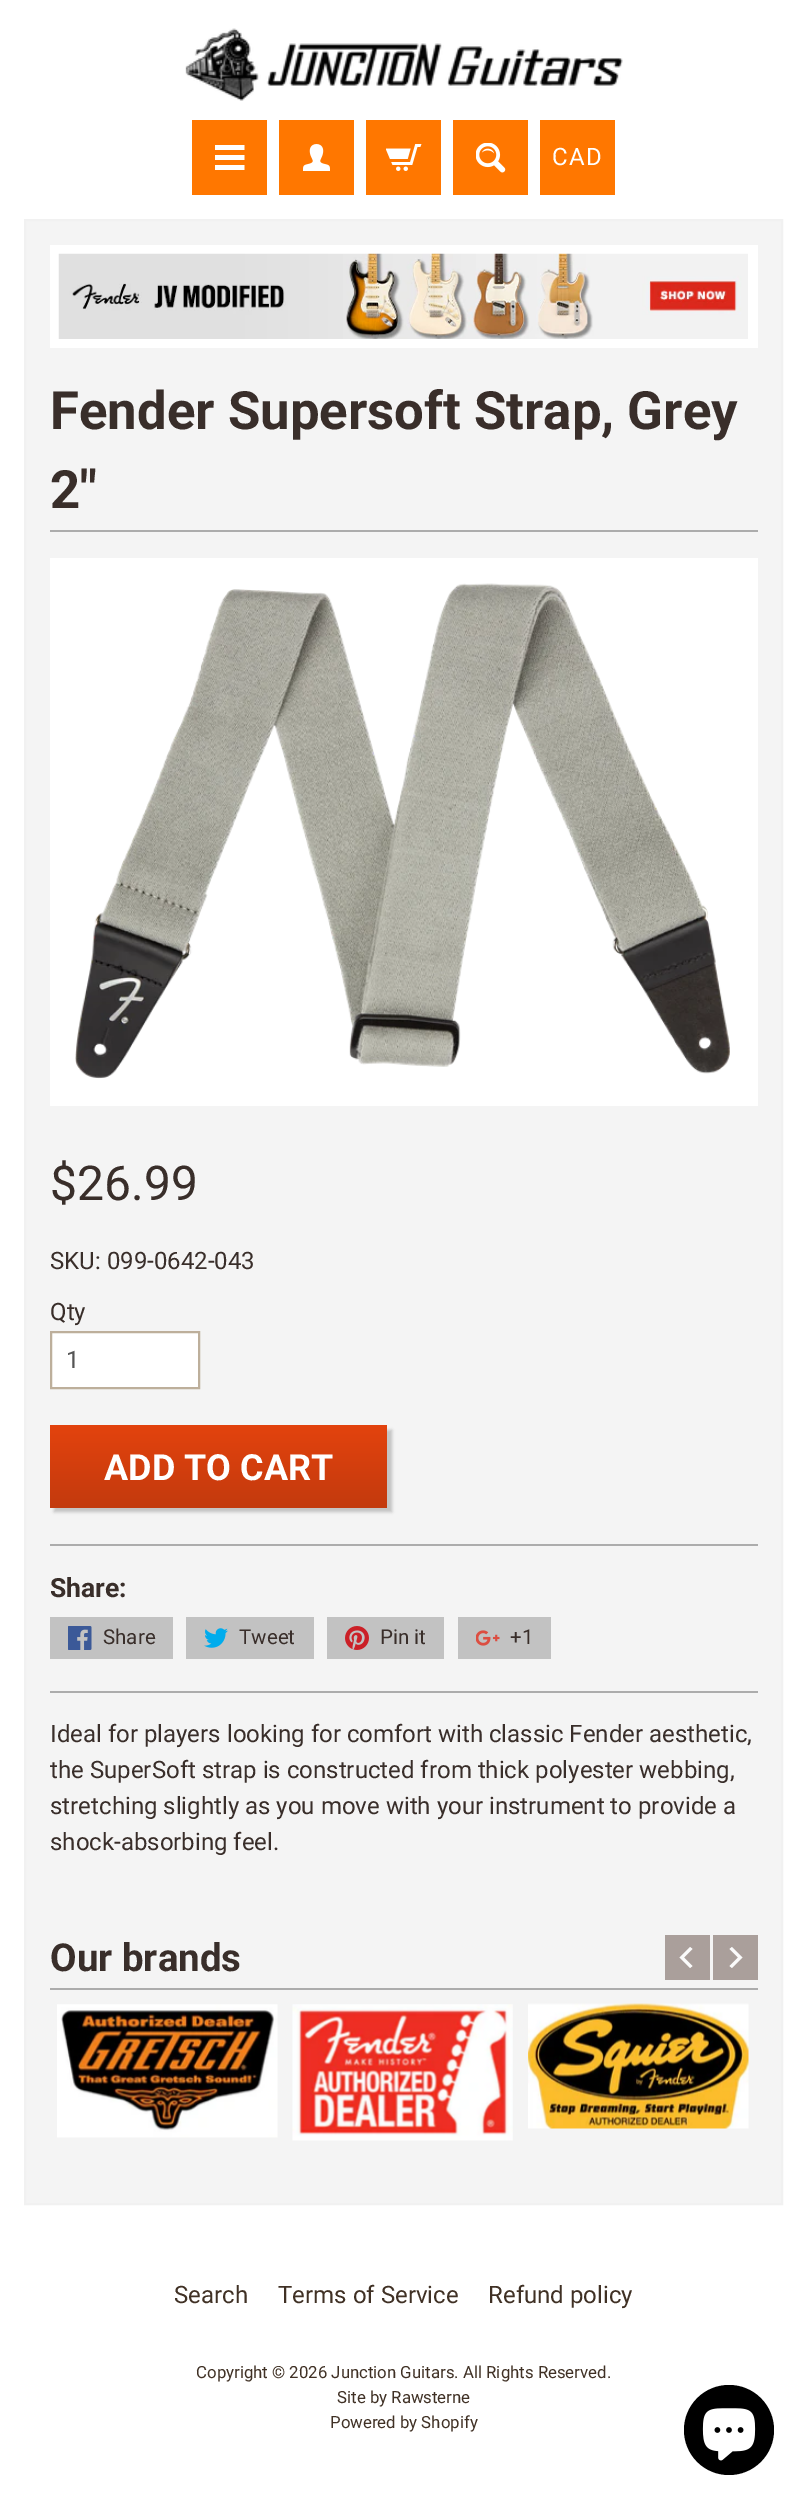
%!PS-Adobe-3.0
%%BoundingBox: 0 0 806 2506
%%LanguageLevel: 3
%%Pages: 1
%%EndComments
%%BeginProlog
/setink { 3 { 255 div 3 1 roll } repeat setrgbcolor } def
/usefont { [ exch dup neg 0 0 3 -1 roll 0 0 ] selectfont } def
/drawtext { setink usefont moveto show } def
/fillbox { setink rectfill } def
/setalpha { dup .setfillconstantalpha .setstrokeconstantalpha } def
/disc { newpath 0 360 arc closepath } def
/rrect { 5 dict begin { /r /h /w /y /x } { exch def } forall
  x r add y moveto x w add y 2 copy h add r arct x w add y h add x 1 index r arct
  x y h add x y r arct x y 2 copy exch w add exch r arct closepath end } def
/softshadow { 12 dict begin { /a /b /q /h /w /y /x } { exch def } forall gsave /was 0 def
  9 -2 -9 { dup b mul 4 div /e exch def 1 sub .425 mul 2.718 exch exp 1 add a .99 .min exch div /now exch def
    1 1 now sub 1 was sub div sub setalpha /was now def
    w h .min e 2 mul add 0 gt { x e sub y e sub w e 2 mul add h e 2 mul add
      q e add b .6 mul add w h .min 2 div e add .min 0 .max rrect fill } if } for grestore end } def
/drawimage { 5 dict begin { /h /w /y /x /name } { exch def } forall
  gsave x y translate w h scale
  w h 8 [w 0 0 h 0 0] name (r) file false 3 colorimage grestore end } def
%%EndProlog
%%BeginSetup
<< /PageSize [806 2506] /PageUsesTransparency true >> setpagedevice
%%EndSetup
%%Page: 1 1
0 .pushpdf14devicefilter
0 2506 translate 1 -1 scale
4 setmiterlimit
0 0 806 2506 255 255 255 fillbox
(assets/img1.rgb) 185 28 438 73 drawimage
192 120 75 75 255 119 0 fillbox
(assets/img2.rgb) 215 145 30 25 drawimage
279 120 75 75 255 119 0 fillbox
(assets/img3.rgb) 303 144 27 27 drawimage
366 120 75 75 255 119 0 fillbox
(assets/img4.rgb) 386 144 36 27 drawimage
453 120 75 75 255 119 0 fillbox
(assets/img5.rgb) 476 143 30 30 drawimage
540 120 75 75 255 119 0 fillbox
/Roboto-Regular 24 usefont
255 255 255 setink
552 165 moveto 1.5 0 (CAD) ashow
244 244 244 setink
25 220 moveto 782 220 lineto 782 2204 lineto 25 2204 lineto closepath gsave fill grestore
241 241 241 setink
2 setlinewidth
stroke
50 245 708 103 255 255 255 fillbox
(assets/img6.rgb) 58 253 690 86 drawimage
50 530 708 2 172 172 172 fillbox
(Fender Supersoft Strap, Grey) 50 429 /Roboto-Bold 52.75 57 46 42 drawtext
(2") 50 508 /Roboto-Bold 52.75 57 46 42 drawtext
50 558 708 548 255 255 255 fillbox
(assets/img7.rgb) 75 583 655 496 drawimage
($26.99) 50 1200 /Roboto-Regular 48 57 46 42 drawtext
(SKU: 099-0642-043) 50 1269 /Roboto-Regular 24 57 46 42 drawtext
(Qty) 50 1320 /Roboto-Regular 24 57 46 42 drawtext
255 255 255 setink
51 1332 moveto 199 1332 lineto 199 1388 lineto 51 1388 lineto closepath gsave fill grestore
189 175 155 setink
stroke
(1) 66 1368 /Roboto-Regular 24 85 85 85 drawtext
0 0 0 setink
54 1430 338 82 0 1.5 0.2 softshadow
gsave 50 1425 moveto 387 1425 lineto 387 1508 lineto 50 1508 lineto closepath clip newpath
<< /ShadingType 2 /ColorSpace /DeviceRGB /Coords [218 1425 218 1508] /Extend [true true] /Function << /FunctionType 2 /Domain [0 1] /C0 [0.89 0.263 0.051] /C1 [0.765 0.227 0.055] /N 1 >> >> shfill grestore
(ADD TO CART) 104 1480 /Roboto-Bold 36 255 255 255 drawtext
50 1544 708 2 172 172 172 fillbox
(Share:) 50 1597 /Roboto-Bold 26.5 57 46 42 drawtext
50 1617 123 42 194 194 194 fillbox
(assets/img8.rgb) 68 1626 24 24 drawimage
(Share) 103 1644 /Roboto-Regular 20.5 57 46 42 drawtext
186 1617 128 42 194 194 194 fillbox
(assets/img9.rgb) 204 1628 24 20 drawimage
(Tweet) 239 1644 /Roboto-Regular 20.5 57 46 42 drawtext
327 1617 117 42 194 194 194 fillbox
(assets/img10.rgb) 345 1626 24 24 drawimage
(Pin it) 380 1644 /Roboto-Regular 20.5 57 46 42 drawtext
458 1617 93 42 194 194 194 fillbox
(assets/img11.rgb) 476 1630 24 16 drawimage
(+1) 510 1644 /Roboto-Regular 20.5 57 46 42 drawtext
50 1691 708 2 172 172 172 fillbox
(Ideal for players looking for comfort with classic Fender aesthetic,) 50 1742 /Roboto-Regular 24 57 46 42 drawtext
(the SuperSoft strap is constructed from thick polyester webbing,) 50 1778 /Roboto-Regular 24 57 46 42 drawtext
(stretching slightly as you move with your instrument to provide a) 50 1814 /Roboto-Regular 24 57 46 42 drawtext
(shock-absorbing feel.) 50 1850 /Roboto-Regular 24 57 46 42 drawtext
665 1935 45 45 170 159 155 fillbox
251 251 251 setink
690 1947 moveto 692.5 1949 lineto 684 1957.5 lineto 692.5 1966 lineto 690 1968 lineto 679.5 1957.5 lineto closepath fill
713 1935 45 45 170 159 155 fillbox
251 251 251 setink
732 1968 moveto 729.5 1966 lineto 738 1957.5 lineto 729.5 1949 lineto 732 1947 lineto 742.5 1957.5 lineto closepath fill
(assets/img12.rgb) 57 2004 221 134 drawimage
(assets/img13.rgb) 292 2004 221 137 drawimage
(assets/img14.rgb) 528 2003 221 126 drawimage
50 1988 708 2 172 172 172 fillbox
(Our brands) 50 1971 /Roboto-Bold 38.5 57 46 42 drawtext
(Search) 174 2303 /Roboto-Regular 24 64 49 37 drawtext
(Terms of Service) 278 2303 /Roboto-Regular 24 64 49 37 drawtext
(Refund policy) 488 2303 /Roboto-Regular 24 64 49 37 drawtext
(Copyright © 2026 Junction Guitars. All Rights Reserved.) 196 2378 /Roboto-Regular 16.8 64 49 37 drawtext
(Site by Rawsterne) 337 2403 /Roboto-Regular 16.8 64 49 37 drawtext
(Powered by Shopify) 330 2428 /Roboto-Regular 16.8 64 49 37 drawtext
0 0 0 setink
729 2430 45 disc fill
(assets/img15.rgb) 702 2408 54 53 drawimage
.poppdf14devicefilter showpage
%%EOF
